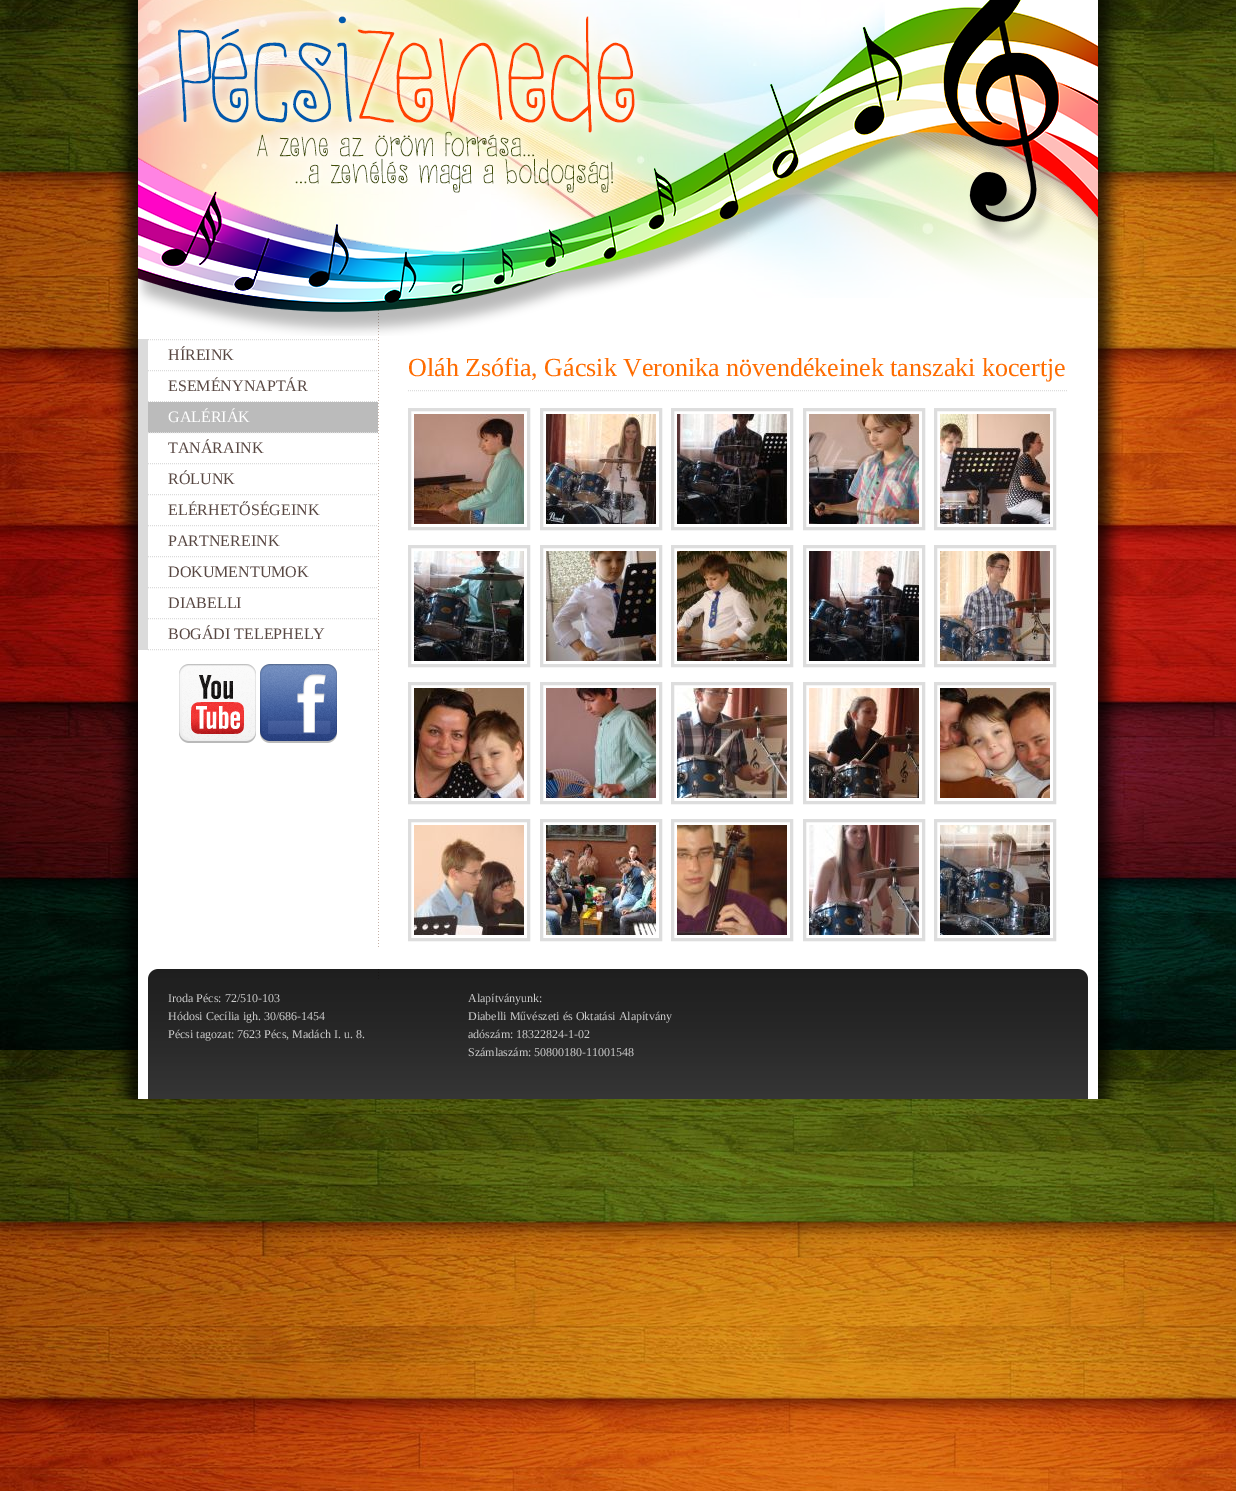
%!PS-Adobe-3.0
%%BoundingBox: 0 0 1236 1491
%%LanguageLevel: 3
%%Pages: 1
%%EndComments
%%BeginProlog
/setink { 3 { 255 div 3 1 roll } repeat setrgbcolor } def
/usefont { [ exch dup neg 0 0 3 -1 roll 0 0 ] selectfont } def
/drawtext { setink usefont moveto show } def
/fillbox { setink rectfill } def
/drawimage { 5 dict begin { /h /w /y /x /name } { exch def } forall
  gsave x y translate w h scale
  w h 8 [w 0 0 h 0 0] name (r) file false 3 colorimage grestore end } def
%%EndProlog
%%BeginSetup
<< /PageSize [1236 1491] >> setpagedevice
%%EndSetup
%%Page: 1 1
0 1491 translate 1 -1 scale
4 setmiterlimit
0 0 1236 1491 255 255 255 fillbox
(assets/img1.rgb) 0 0 1236 1491 drawimage
(assets/img2.rgb) 113 0 1010 1099 drawimage
(assets/img3.rgb) 138 0 960 336 drawimage
138 339 10 311 219 219 219 fillbox
[1 1] 0 setdash
148 339.5 moveto 378 339.5 lineto stroke
148 370.5 moveto 378 370.5 lineto stroke
(HÍREINK) 168 360 /LiberationSerif-Regular 16 88 71 66 drawtext
219 219 219 setink
148 401.5 moveto 378 401.5 lineto stroke
(ESEMÉNYNAPTÁR) 168 391 /LiberationSerif-Regular 16 88 71 66 drawtext
148 402 230 31 187 187 187 fillbox
219 219 219 setink
148 432.5 moveto 378 432.5 lineto stroke
(GALÉRIÁK) 168 422 /LiberationSerif-Regular 16 255 255 255 drawtext
219 219 219 setink
148 463.5 moveto 378 463.5 lineto stroke
(TANÁRAINK) 168 453 /LiberationSerif-Regular 16 88 71 66 drawtext
219 219 219 setink
148 494.5 moveto 378 494.5 lineto stroke
(RÓLUNK) 168 484 /LiberationSerif-Regular 16 88 71 66 drawtext
219 219 219 setink
148 525.5 moveto 378 525.5 lineto stroke
(ELÉRHETŐSÉGEINK) 168 515 /LiberationSerif-Regular 16 88 71 66 drawtext
219 219 219 setink
148 556.5 moveto 378 556.5 lineto stroke
(PARTNEREINK) 168 546 /LiberationSerif-Regular 16 88 71 66 drawtext
219 219 219 setink
148 587.5 moveto 378 587.5 lineto stroke
(DOKUMENTUMOK) 168 577 /LiberationSerif-Regular 16 88 71 66 drawtext
219 219 219 setink
148 618.5 moveto 378 618.5 lineto stroke
(DIABELLI) 168 608 /LiberationSerif-Regular 16 88 71 66 drawtext
219 219 219 setink
148 649.5 moveto 378 649.5 lineto stroke
(BOGÁDI TELEPHELY) 168 639 /LiberationSerif-Regular 16 88 71 66 drawtext
(assets/img4.rgb) 179 664 77 79 drawimage
(assets/img5.rgb) 260 664 77 79 drawimage
(Oláh Zsófia, Gácsik Veronika növendékeinek tanszaki kocertje) 408 376 /LiberationSerif-Regular 26 255 108 0 drawtext
221 221 221 setink
408 390.5 moveto 1068 390.5 lineto stroke
3 setlinewidth
[] 0 setdash
409.5 409.5 119 119 rectstroke
541.5 409.5 119 119 rectstroke
672.5 409.5 119 119 rectstroke
804.5 409.5 119 119 rectstroke
935.5 409.5 119 119 rectstroke
(assets/img6.rgb) 414 414 110 110 drawimage
(assets/img7.rgb) 546 414 110 110 drawimage
(assets/img8.rgb) 677 414 110 110 drawimage
(assets/img9.rgb) 809 414 110 110 drawimage
(assets/img10.rgb) 940 414 110 110 drawimage
409.5 546.5 119 119 rectstroke
541.5 546.5 119 119 rectstroke
672.5 546.5 119 119 rectstroke
804.5 546.5 119 119 rectstroke
935.5 546.5 119 119 rectstroke
(assets/img11.rgb) 414 551 110 110 drawimage
(assets/img12.rgb) 546 551 110 110 drawimage
(assets/img13.rgb) 677 551 110 110 drawimage
(assets/img14.rgb) 809 551 110 110 drawimage
(assets/img15.rgb) 940 551 110 110 drawimage
409.5 683.5 119 119 rectstroke
541.5 683.5 119 119 rectstroke
672.5 683.5 119 119 rectstroke
804.5 683.5 119 119 rectstroke
935.5 683.5 119 119 rectstroke
(assets/img16.rgb) 414 688 110 110 drawimage
(assets/img17.rgb) 546 688 110 110 drawimage
(assets/img18.rgb) 677 688 110 110 drawimage
(assets/img19.rgb) 809 688 110 110 drawimage
(assets/img20.rgb) 940 688 110 110 drawimage
409.5 820.5 119 119 rectstroke
541.5 820.5 119 119 rectstroke
672.5 820.5 119 119 rectstroke
804.5 820.5 119 119 rectstroke
935.5 820.5 119 119 rectstroke
(assets/img21.rgb) 414 825 110 110 drawimage
(assets/img22.rgb) 546 825 110 110 drawimage
(assets/img23.rgb) 677 825 110 110 drawimage
(assets/img24.rgb) 809 825 110 110 drawimage
(assets/img25.rgb) 940 825 110 110 drawimage
(assets/img26.rgb) 148 969 940 130 drawimage
378 949 1 19 255 255 255 fillbox
(Iroda Pécs: 72/510-103) 168 1002 /LiberationSerif-Regular 12 204 204 204 drawtext
(Hódosi Cecília igh. 30/686-1454) 168 1020 /LiberationSerif-Regular 12 204 204 204 drawtext
(Pécsi tagozat: 7623 Pécs, Madách I. u. 8.) 168 1038 /LiberationSerif-Regular 12 204 204 204 drawtext
(Alapítványunk:) 468 1002 /LiberationSerif-Regular 12 204 204 204 drawtext
(Diabelli Művészeti és Oktatási Alapítvány) 468 1020 /LiberationSerif-Regular 12 204 204 204 drawtext
(adószám: 18322824-1-02) 468 1038 /LiberationSerif-Regular 12 204 204 204 drawtext
(Számlaszám: 50800180-11001548) 468 1056 /LiberationSerif-Regular 12 204 204 204 drawtext
showpage
%%EOF
